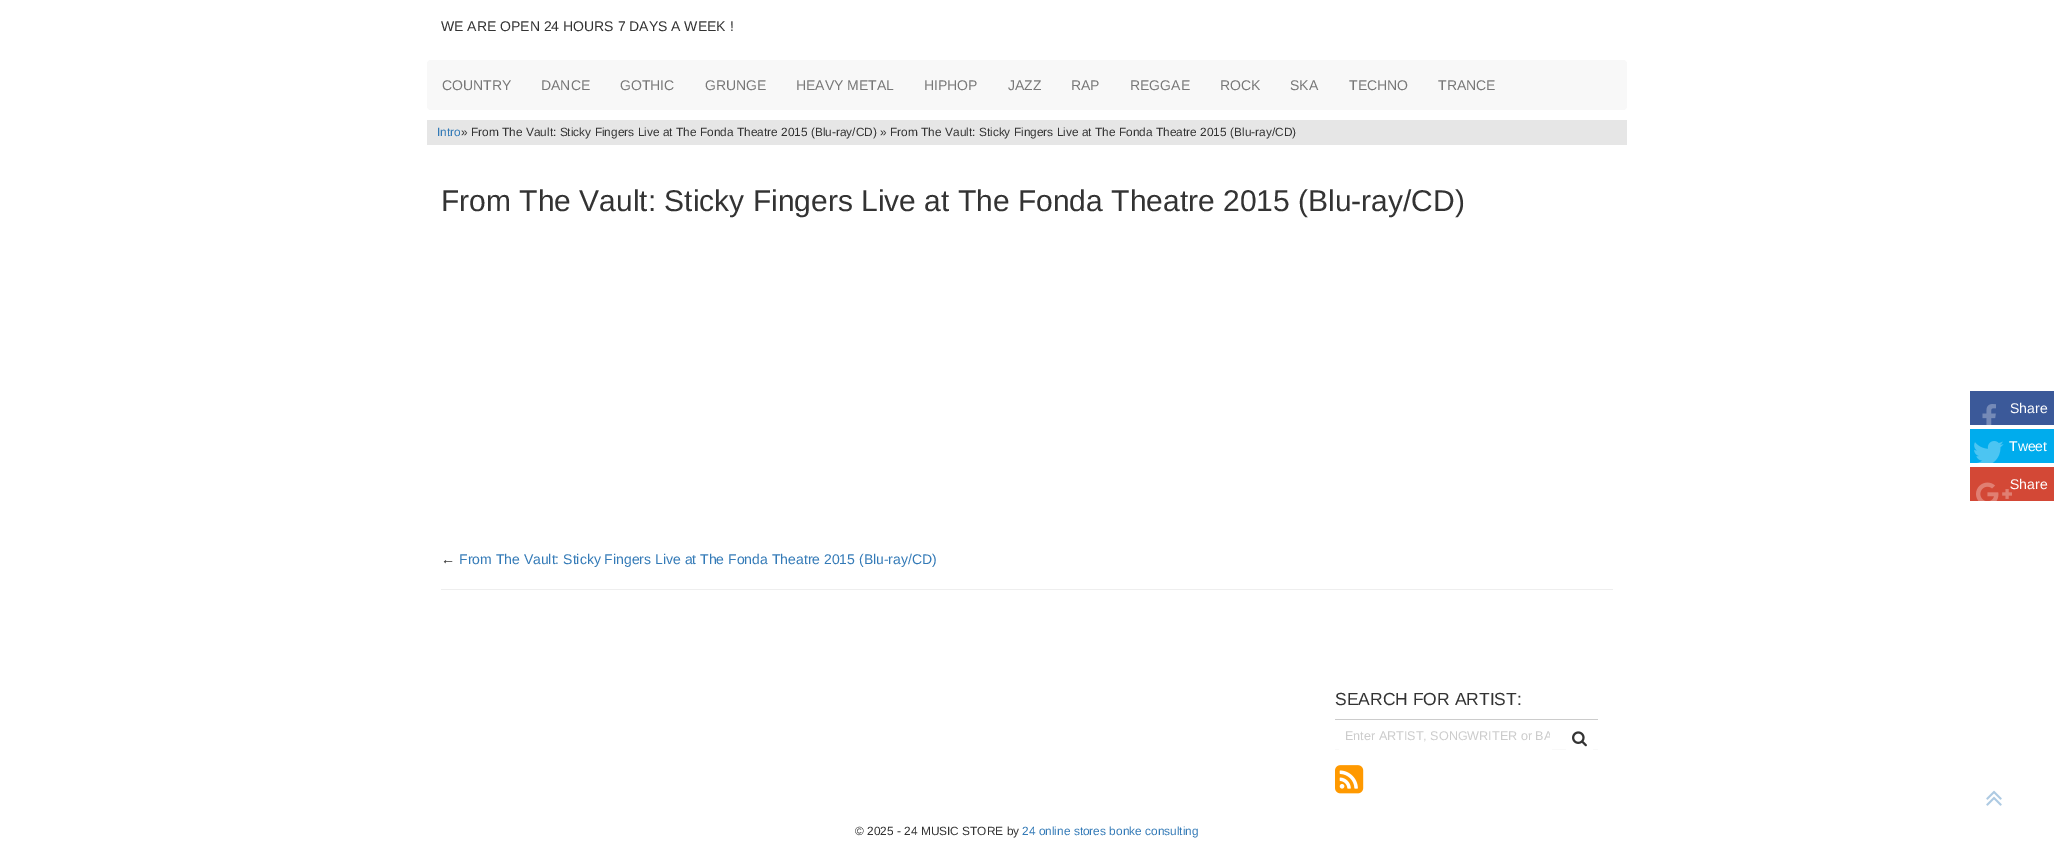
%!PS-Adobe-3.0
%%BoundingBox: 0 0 2054 858
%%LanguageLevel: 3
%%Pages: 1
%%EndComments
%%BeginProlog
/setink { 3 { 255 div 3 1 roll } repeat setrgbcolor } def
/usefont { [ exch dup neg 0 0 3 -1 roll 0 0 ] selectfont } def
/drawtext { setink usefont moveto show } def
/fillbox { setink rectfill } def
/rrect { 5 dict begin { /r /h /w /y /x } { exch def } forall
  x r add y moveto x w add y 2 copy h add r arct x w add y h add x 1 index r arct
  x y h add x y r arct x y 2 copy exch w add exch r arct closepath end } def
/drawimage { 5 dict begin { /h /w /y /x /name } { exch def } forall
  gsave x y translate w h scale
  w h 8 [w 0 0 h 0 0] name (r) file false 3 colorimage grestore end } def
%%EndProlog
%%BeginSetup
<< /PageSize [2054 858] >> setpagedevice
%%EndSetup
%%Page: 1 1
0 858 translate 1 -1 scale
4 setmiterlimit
0 0 2054 858 255 255 255 fillbox
(WE ARE OPEN 24 HOURS 7 DAYS A WEEK !) 441 31 /LiberationSans-Regular 14 51 51 51 drawtext
248 248 248 setink
427 60 1200 50 4 rrect fill
(COUNTRY) 442 90 /LiberationSans-Regular 14 119 119 119 drawtext
(DANCE) 541 90 /LiberationSans-Regular 14 119 119 119 drawtext
(GOTHIC) 620 90 /LiberationSans-Regular 14 119 119 119 drawtext
(GRUNGE) 705 90 /LiberationSans-Regular 14 119 119 119 drawtext
(HEAVY METAL) 796 90 /LiberationSans-Regular 14 119 119 119 drawtext
(HIPHOP) 924 90 /LiberationSans-Regular 14 119 119 119 drawtext
(JAZZ) 1008 90 /LiberationSans-Regular 14 119 119 119 drawtext
(RAP) 1071 90 /LiberationSans-Regular 14 119 119 119 drawtext
(REGGAE) 1130 90 /LiberationSans-Regular 14 119 119 119 drawtext
(ROCK) 1220 90 /LiberationSans-Regular 14 119 119 119 drawtext
(SKA) 1290 90 /LiberationSans-Regular 14 119 119 119 drawtext
(TECHNO) 1349 90 /LiberationSans-Regular 14 119 119 119 drawtext
(TRANCE) 1438 90 /LiberationSans-Regular 14 119 119 119 drawtext
427 120 1200 25 230 230 230 fillbox
(Intro) 437 136 /LiberationSans-Regular 11.9 51 122 183 drawtext
(» From The Vault: Sticky Fingers Live at The Fonda Theatre 2015 \(Blu-ray/CD\) » From The Vault: Sticky Fingers Live at The Fonda Theatre 2015 \(Blu-ray/CD\)) 461 136 /LiberationSans-Regular 11.9 51 51 51 drawtext
(From The Vault: Sticky Fingers Live at The Fonda Theatre 2015 \(Blu-ray/CD\)) 441 211 /LiberationSans-Regular 30 51 51 51 drawtext
(←) 441 564 /LiberationSans-Regular 14 51 51 51 drawtext
(From The Vault: Sticky Fingers Live at The Fonda Theatre 2015 \(Blu-ray/CD\)) 459 564 /LiberationSans-Regular 14 51 122 183 drawtext
441 589 1172 1 238 238 238 fillbox
1970 391 84 34 59 89 153 fillbox
(assets/img1.rgb) 1982 404 14 21 drawimage
(Share) 2010 413 /LiberationSans-Regular 14 255 255 255 drawtext
1970 429 84 34 0 172 237 fillbox
(assets/img2.rgb) 1974 441 30 22 drawimage
(Tweet) 2009 451 /LiberationSans-Regular 14 255 255 255 drawtext
1970 467 84 34 211 72 54 fillbox
(Share) 2010 489 /LiberationSans-Regular 14 255 255 255 drawtext
(assets/img3.rgb) 1976 482 36 19 drawimage
(SEARCH FOR ARTIST:) 1335 705 /LiberationSans-Regular 17.5 51 51 51 drawtext
1335 749 263 1 249 249 249 fillbox
1335 719 263 1 204 204 204 fillbox
1339 749 213 1 255 255 255 fillbox
gsave
1345 729 205 14 rectclip
(Enter ARTIST, SONGWRITER or BA) 1345 740 /LiberationSans-Regular 12.6 204 204 204 drawtext
grestore
1566 749 27 1 255 255 255 fillbox
(assets/img4.rgb) 1572 731 15 16 drawimage
(assets/img5.rgb) 1335 765 29 29 drawimage
(© 2025 - 24 MUSIC STORE by) 855 835 /LiberationSans-Regular 11.9 51 51 51 drawtext
(24 online stores bonke consulting) 1022 835 /LiberationSans-Regular 11.9 51 122 183 drawtext
(assets/img6.rgb) 1986 790 16 16 drawimage
showpage
%%EOF
